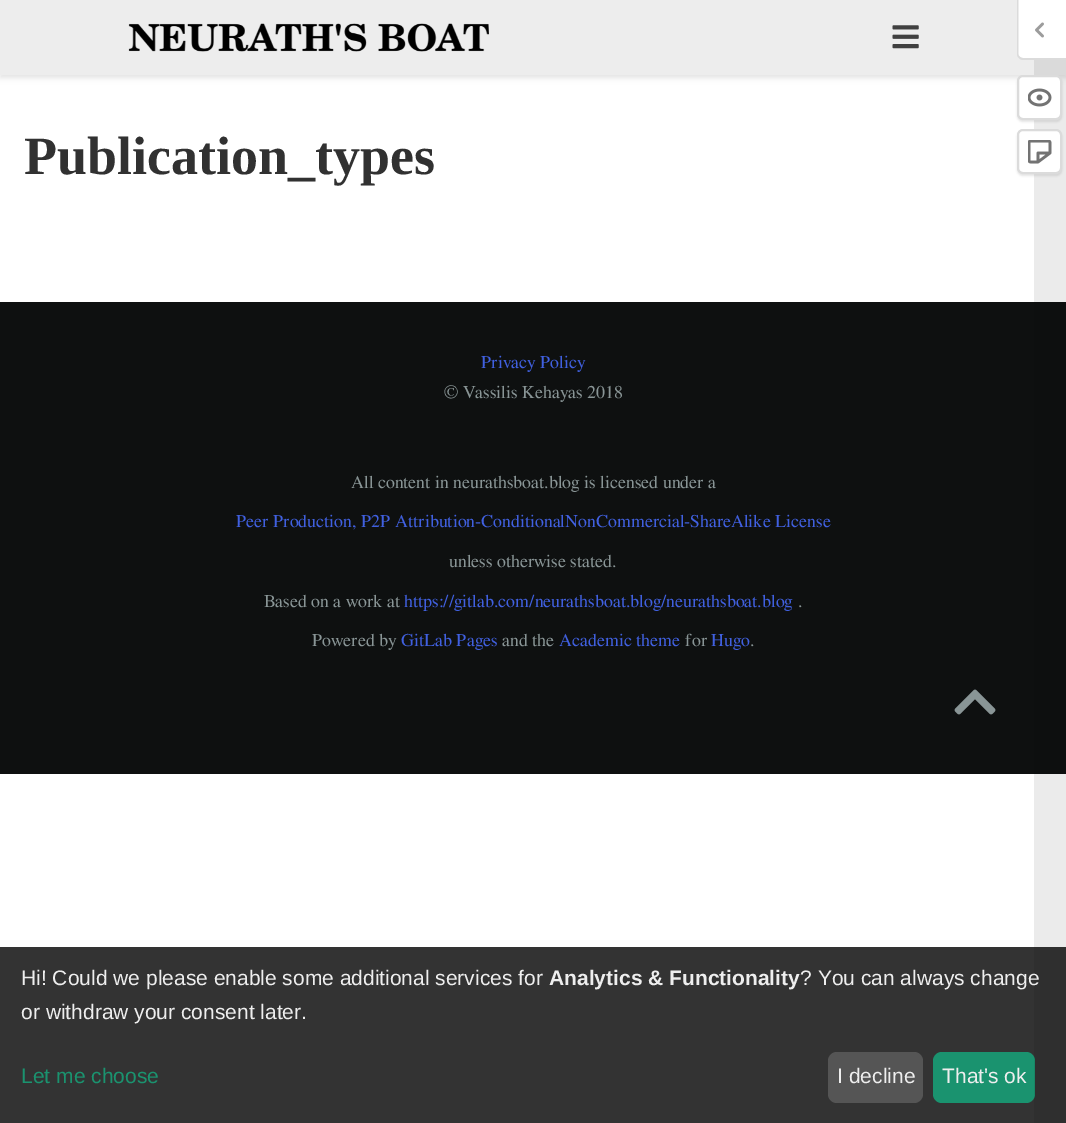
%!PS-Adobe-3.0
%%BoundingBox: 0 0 1066 1123
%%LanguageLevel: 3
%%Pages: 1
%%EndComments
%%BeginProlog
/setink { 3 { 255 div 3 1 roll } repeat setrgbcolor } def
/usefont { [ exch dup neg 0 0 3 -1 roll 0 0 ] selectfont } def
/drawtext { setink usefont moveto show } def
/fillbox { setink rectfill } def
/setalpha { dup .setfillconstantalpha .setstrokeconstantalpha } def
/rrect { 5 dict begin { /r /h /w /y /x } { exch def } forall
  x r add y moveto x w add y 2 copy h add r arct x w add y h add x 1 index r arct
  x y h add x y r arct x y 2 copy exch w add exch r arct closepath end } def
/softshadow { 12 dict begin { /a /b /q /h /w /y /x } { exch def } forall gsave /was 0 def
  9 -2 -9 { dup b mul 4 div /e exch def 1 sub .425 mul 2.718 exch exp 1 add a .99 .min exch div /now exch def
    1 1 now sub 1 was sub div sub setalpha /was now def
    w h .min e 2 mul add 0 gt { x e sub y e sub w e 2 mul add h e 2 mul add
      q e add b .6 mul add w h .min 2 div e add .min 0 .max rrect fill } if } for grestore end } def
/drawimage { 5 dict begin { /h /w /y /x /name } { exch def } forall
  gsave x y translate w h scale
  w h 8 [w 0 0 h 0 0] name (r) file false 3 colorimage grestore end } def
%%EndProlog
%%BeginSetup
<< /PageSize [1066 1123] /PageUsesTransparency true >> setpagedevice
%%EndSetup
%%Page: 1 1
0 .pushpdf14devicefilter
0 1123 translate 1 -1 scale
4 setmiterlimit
0 0 1066 1123 255 255 255 fillbox
0 0 0 setink
0 3 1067 75 0 3 0.11 softshadow
0 0 1066 75 237 237 237 fillbox
(assets/img1.rgb) 128 23 361 29 drawimage
(assets/img2.rgb) 892 25 27 24 drawimage
(Publication_types) 24 174 /LiberationSerif-Bold 54 49 49 49 drawtext
0 302 1066 472 14 16 16 fillbox
0 947 1066 176 51 51 51 fillbox
26 147 111 setink
933 1052 102 51 9 rrect fill
0.08 setalpha
1034 60 32 1063 0 0 0 fillbox
1 setalpha
255 255 255 setink
1019 0 moveto 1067 0 lineto 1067 59 lineto 1024 59 lineto 1021 59 1019 57 1019 54 curveto closepath fill
219 219 219 setink
1017 0 moveto 1066 0 lineto 1066 60 lineto 1023 60 lineto 1020 60 1017 57 1017 54 curveto closepath 1018 0 moveto 1066 0 lineto 1066 58 lineto 1023 58 lineto 1021 58 1018 56 1018 54 curveto closepath eofill
(assets/img3.rgb) 1035 22 9 16 drawimage
0 0 0 setink
1017 77 45 45 6 1 0.1 softshadow
255 255 255 setink
1018 76 43 43 5 rrect gsave fill grestore
219 219 219 setink
2 setlinewidth
stroke
(assets/img4.rgb) 1028 88 24 19 drawimage
0 0 0 setink
1017 131 45 45 6 1 0.1 softshadow
255 255 255 setink
1018 130 43 43 5 rrect gsave fill grestore
219 219 219 setink
stroke
(assets/img5.rgb) 1028 140 24 24 drawimage
(Privacy Policy) 481 368 /FreeSerif-Regular 18 64 96 224 drawtext
(© Vassilis Kehayas 2018) 444 398 /FreeSerif-Regular 18 137 149 150 drawtext
(All content in neurathsboat.blog is licensed under a) 351 488 /FreeSerif-Regular 18 137 149 150 drawtext
(Peer Production, P2P Attribution-ConditionalNonCommercial-ShareAlike License) 236 527 /FreeSerif-Regular 18 64 96 224 drawtext
(unless otherwise stated.) 449 567 /FreeSerif-Regular 18 137 149 150 drawtext
(Based on a work at) 264 607 /FreeSerif-Regular 18 137 149 150 drawtext
(https://gitlab.com/neurathsboat.blog/neurathsboat.blog) 404 607 /FreeSerif-Regular 18 64 96 224 drawtext
(.) 798 607 /FreeSerif-Regular 18 137 149 150 drawtext
(Powered by) 312 646 /FreeSerif-Regular 18 137 149 150 drawtext
(GitLab Pages) 401 646 /FreeSerif-Regular 18 64 96 224 drawtext
(and the) 502 646 /FreeSerif-Regular 18 137 149 150 drawtext
(Academic theme) 559 646 /FreeSerif-Regular 18 64 96 224 drawtext
(for) 685 646 /FreeSerif-Regular 18 137 149 150 drawtext
(Hugo) 711 646 /FreeSerif-Regular 18 64 96 224 drawtext
(.) 750 646 /FreeSerif-Regular 18 137 149 150 drawtext
(assets/img6.rgb) 954 689 42 26 drawimage
(Hi! Could we please enable some additional services for) 21 985 /LiberationSans-Regular 21 238 238 238 drawtext
(Analytics & Functionality) 549 985 /LiberationSans-Bold 21 238 238 238 drawtext
(? You can always change) 800 985 /LiberationSans-Regular 21 238 238 238 drawtext
(or withdraw your consent later.) 21 1019 /LiberationSans-Regular 21 238 238 238 drawtext
(Let me choose) 21 1083 /LiberationSans-Regular 21 26 147 111 drawtext
85 85 85 setink
828 1052 95 51 9 rrect fill
(I decline) 837 1083 /LiberationSans-Regular 21 238 238 238 drawtext
(That's ok) 942 1083 /LiberationSans-Regular 21 238 238 238 drawtext
.poppdf14devicefilter showpage
%%EOF
